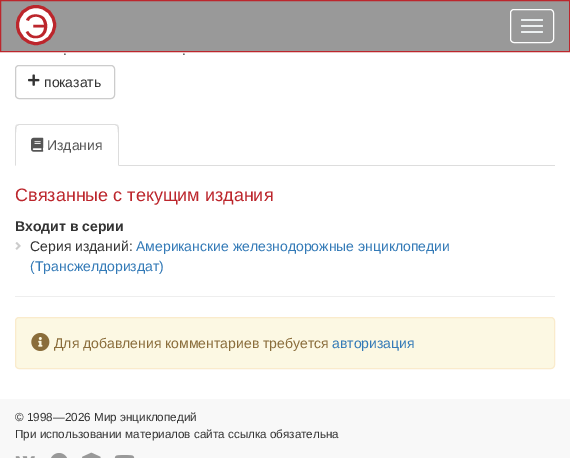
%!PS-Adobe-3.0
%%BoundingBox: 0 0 570 458
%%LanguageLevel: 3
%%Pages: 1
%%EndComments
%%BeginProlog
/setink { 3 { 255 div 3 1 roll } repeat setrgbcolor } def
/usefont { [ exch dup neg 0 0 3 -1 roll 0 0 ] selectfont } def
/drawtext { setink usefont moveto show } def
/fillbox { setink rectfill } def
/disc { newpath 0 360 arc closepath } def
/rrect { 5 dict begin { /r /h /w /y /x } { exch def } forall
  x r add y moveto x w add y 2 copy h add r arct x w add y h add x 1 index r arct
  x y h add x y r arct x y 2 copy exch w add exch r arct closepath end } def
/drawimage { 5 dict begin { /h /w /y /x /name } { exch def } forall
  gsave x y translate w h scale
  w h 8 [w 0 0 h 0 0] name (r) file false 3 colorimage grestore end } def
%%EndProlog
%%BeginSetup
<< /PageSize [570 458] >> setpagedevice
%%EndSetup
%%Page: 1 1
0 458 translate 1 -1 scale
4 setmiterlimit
0 0 570 458 255 255 255 fillbox
153 153 153 setink
0.5 0.5 moveto 569.5 0.5 lineto 569.5 51.5 lineto 0.5 51.5 lineto closepath gsave fill grestore
188 38 44 setink
stroke
255 255 255 setink
36 25 18.5 disc gsave fill grestore
188 38 44 setink
3 setlinewidth
stroke
(Э) 24 38 /LiberationSans-Regular 34 188 38 44 drawtext
255 255 255 setink
1 setlinewidth
510.5 9.5 43 33 3.5 rrect stroke
236 240 241 setink
521 19 22 2 1 rrect fill
521 25 22 2 1 rrect fill
521 31 22 2 1 rrect fill
(.) 63 55 /LiberationSans-Regular 14 51 51 51 drawtext
(.) 182 55 /LiberationSans-Regular 14 51 51 51 drawtext
204 204 204 setink
15.5 65.5 99 33 3.5 rrect stroke
(assets/img1.rgb) 28 74 12 12 drawimage
(показать) 44 87 /LiberationSans-Regular 14 51 51 51 drawtext
119 165 436 1 221 221 221 fillbox
19 124 moveto 16 125 lineto 17 126 lineto 19 125 lineto 115 125 lineto 117 126 lineto 118 125 lineto 115 124 lineto closepath fill
119 166 moveto 119 128 lineto 119 127 118 126 118 125 curveto 117 126 lineto 119 128 118 160 118 165 curveto closepath fill
15 166 moveto 16 165 lineto 16 160 15 128 17 126 curveto 16 125 lineto 15 128 lineto closepath fill
(assets/img2.rgb) 31 137 13 15 drawimage
(Издания) 47 150 /LiberationSans-Regular 14 85 85 85 drawtext
(Связанные с текущим издания) 15 201 /LiberationSans-Regular 18 188 38 44 drawtext
(Входит в серии) 15 231 /LiberationSans-Bold 14 51 51 51 drawtext
(assets/img3.rgb) 15 242 6 8 drawimage
(Серия изданий:) 30 251 /LiberationSans-Regular 14 51 51 51 drawtext
(Американские железнодорожные энциклопедии) 136 251 /LiberationSans-Regular 14 51 122 183 drawtext
(\(Трансжелдориздат\)) 30 271 /LiberationSans-Regular 14 51 122 183 drawtext
15 296 540 1 238 238 238 fillbox
252 248 227 setink
15.5 317.5 539 51 3.5 rrect gsave fill grestore
250 235 204 setink
stroke
(assets/img4.rgb) 31 333 19 18 drawimage
(Для добавления комментариев требуется) 54 348 /LiberationSans-Regular 14 138 109 59 drawtext
(авторизация) 332 348 /LiberationSans-Regular 14 51 122 183 drawtext
0 399 570 59 248 248 248 fillbox
(© 1998—2026 Мир энциклопедий) 15 421 /LiberationSans-Regular 11.7 51 51 51 drawtext
(При использовании материалов сайта ссылка обязательна) 15 438 /LiberationSans-Regular 11.7 51 51 51 drawtext
(assets/img5.rgb) 15 456 20 2 drawimage
(assets/img6.rgb) 51 453 16 5 drawimage
(assets/img7.rgb) 82 452 19 6 drawimage
(assets/img8.rgb) 114 455 21 3 drawimage
showpage
%%EOF
